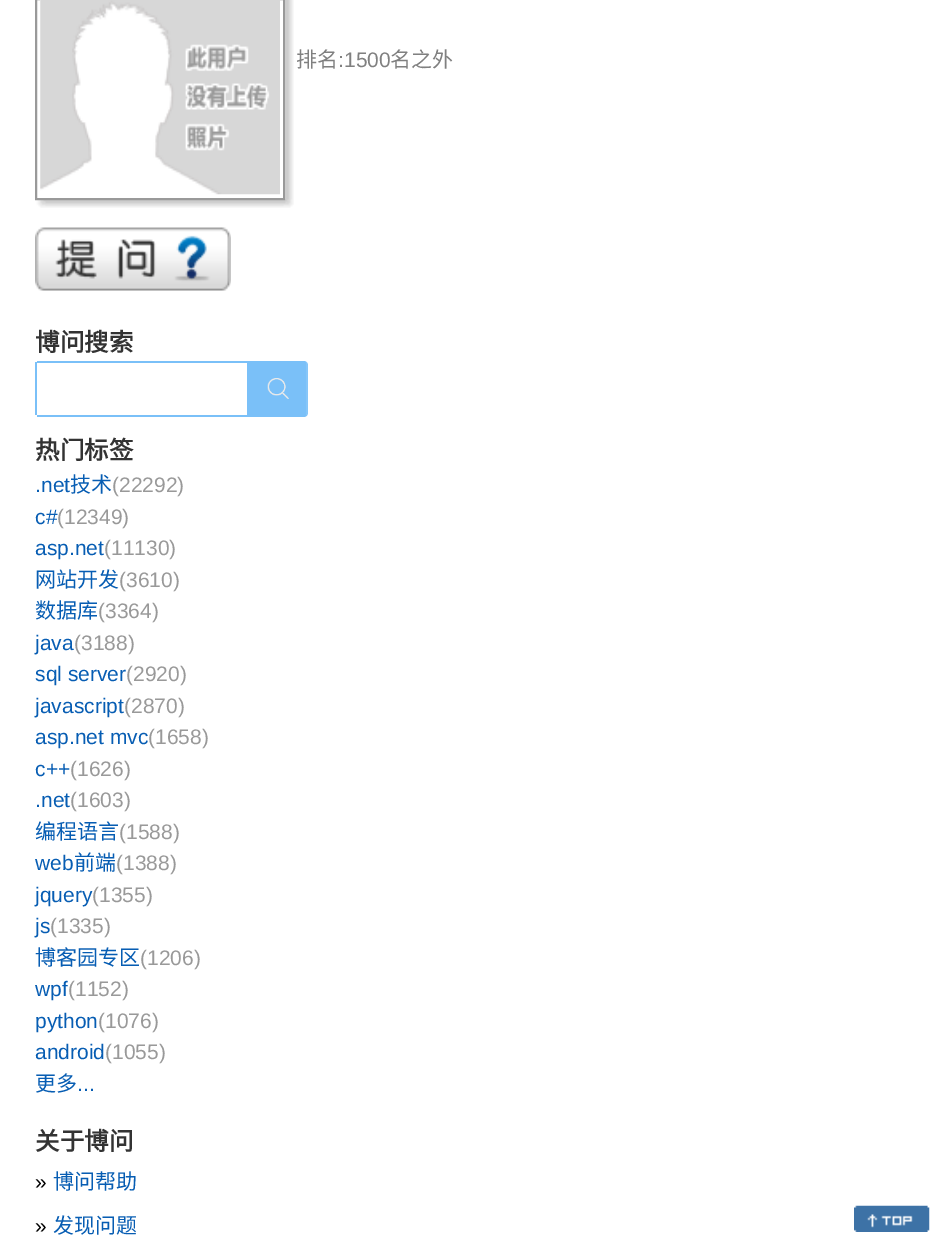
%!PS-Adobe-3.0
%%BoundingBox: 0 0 946 1258
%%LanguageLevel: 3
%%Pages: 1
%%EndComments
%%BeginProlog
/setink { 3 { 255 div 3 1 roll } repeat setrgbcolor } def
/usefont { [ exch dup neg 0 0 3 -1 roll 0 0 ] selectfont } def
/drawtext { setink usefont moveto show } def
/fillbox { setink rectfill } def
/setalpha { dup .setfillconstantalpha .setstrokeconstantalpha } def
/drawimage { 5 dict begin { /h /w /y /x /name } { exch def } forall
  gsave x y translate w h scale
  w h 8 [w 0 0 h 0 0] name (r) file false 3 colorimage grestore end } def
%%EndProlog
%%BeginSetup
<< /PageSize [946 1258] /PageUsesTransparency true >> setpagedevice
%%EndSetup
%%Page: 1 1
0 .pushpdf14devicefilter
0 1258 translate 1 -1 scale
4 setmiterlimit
0 0 946 1258 255 255 255 fillbox
(assets/img1.rgb) 45 0 249 208 drawimage
(assets/img2.rgb) 35 200 11 8 drawimage
153 153 153 setink
2 setlinewidth
36 -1 248 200 rectstroke
(assets/img3.rgb) 40 0 240 195 drawimage
(排名) 296 67 /NotoSansCJKSC-Regular 21 128 128 128 drawtext
(:1500) 338 67 /LiberationSans-Regular 21 128 128 128 drawtext
(名之外) 390 67 /NotoSansCJKSC-Regular 21 128 128 128 drawtext
(assets/img4.rgb) 35 227 196 64 drawimage
(博问搜索) 35 351 /NotoSansCJKSC-Bold 24.5 51 51 51 drawtext
37 361 210 2 122 192 248 fillbox
37 415 210 2 122 192 248 fillbox
35 362 2 53 122 192 248 fillbox
247 361 moveto 304 361 lineto 306 361 308 363 308 365 curveto 308 413 lineto 308 415 306 417 304 417 curveto 247 417 lineto closepath fill
(assets/img5.rgb) 267 378 22 21 drawimage
0.1 setalpha
306 362 2 53 236 246 255 fillbox
1 setalpha
(热门标签) 35 459 /NotoSansCJKSC-Bold 24.5 51 51 51 drawtext
(.net) 35 492 /LiberationSans-Regular 21 7 93 179 drawtext
(技术) 70 492 /NotoSansCJKSC-Regular 21 7 93 179 drawtext
(\(22292\)) 112 492 /LiberationSans-Regular 21 153 153 153 drawtext
(c#) 35 524 /LiberationSans-Regular 21 7 93 179 drawtext
(\(12349\)) 57 524 /LiberationSans-Regular 21 153 153 153 drawtext
(asp.net) 35 555 /LiberationSans-Regular 21 7 93 179 drawtext
(\(11130\)) 104 555 /LiberationSans-Regular 21 153 153 153 drawtext
(网站开发) 35 587 /NotoSansCJKSC-Regular 21 7 93 179 drawtext
(\(3610\)) 119 587 /LiberationSans-Regular 21 153 153 153 drawtext
(数据库) 35 618 /NotoSansCJKSC-Regular 21 7 93 179 drawtext
(\(3364\)) 98 618 /LiberationSans-Regular 21 153 153 153 drawtext
(java) 35 650 /LiberationSans-Regular 21 7 93 179 drawtext
(\(3188\)) 74 650 /LiberationSans-Regular 21 153 153 153 drawtext
(sql server) 35 681 /LiberationSans-Regular 21 7 93 179 drawtext
(\(2920\)) 126 681 /LiberationSans-Regular 21 153 153 153 drawtext
(javascript) 35 713 /LiberationSans-Regular 21 7 93 179 drawtext
(\(2870\)) 124 713 /LiberationSans-Regular 21 153 153 153 drawtext
(asp.net mvc) 35 744 /LiberationSans-Regular 21 7 93 179 drawtext
(\(1658\)) 148 744 /LiberationSans-Regular 21 153 153 153 drawtext
(c++) 35 776 /LiberationSans-Regular 21 7 93 179 drawtext
(\(1626\)) 70 776 /LiberationSans-Regular 21 153 153 153 drawtext
(.net) 35 807 /LiberationSans-Regular 21 7 93 179 drawtext
(\(1603\)) 70 807 /LiberationSans-Regular 21 153 153 153 drawtext
(编程语言) 35 839 /NotoSansCJKSC-Regular 21 7 93 179 drawtext
(\(1588\)) 119 839 /LiberationSans-Regular 21 153 153 153 drawtext
(web) 35 870 /LiberationSans-Regular 21 7 93 179 drawtext
(前端) 74 870 /NotoSansCJKSC-Regular 21 7 93 179 drawtext
(\(1388\)) 116 870 /LiberationSans-Regular 21 153 153 153 drawtext
(jquery) 35 902 /LiberationSans-Regular 21 7 93 179 drawtext
(\(1355\)) 92 902 /LiberationSans-Regular 21 153 153 153 drawtext
(js) 35 933 /LiberationSans-Regular 21 7 93 179 drawtext
(\(1335\)) 50 933 /LiberationSans-Regular 21 153 153 153 drawtext
(博客园专区) 35 965 /NotoSansCJKSC-Regular 21 7 93 179 drawtext
(\(1206\)) 140 965 /LiberationSans-Regular 21 153 153 153 drawtext
(wpf) 35 996 /LiberationSans-Regular 21 7 93 179 drawtext
(\(1152\)) 68 996 /LiberationSans-Regular 21 153 153 153 drawtext
(python) 35 1028 /LiberationSans-Regular 21 7 93 179 drawtext
(\(1076\)) 98 1028 /LiberationSans-Regular 21 153 153 153 drawtext
(android) 35 1059 /LiberationSans-Regular 21 7 93 179 drawtext
(\(1055\)) 105 1059 /LiberationSans-Regular 21 153 153 153 drawtext
(更多) 35 1091 /NotoSansCJKSC-Regular 21 7 93 179 drawtext
(...) 77 1091 /LiberationSans-Regular 21 7 93 179 drawtext
(关于博问) 35 1150 /NotoSansCJKSC-Bold 24.5 51 51 51 drawtext
(») 35 1189 /LiberationSans-Regular 21 0 0 0 drawtext
(博问帮助) 53 1189 /NotoSansCJKSC-Regular 21 7 93 179 drawtext
(») 35 1233 /LiberationSans-Regular 21 0 0 0 drawtext
(发现问题) 53 1233 /NotoSansCJKSC-Regular 21 7 93 179 drawtext
(assets/img6.rgb) 854 1205 76 27 drawimage
.poppdf14devicefilter showpage
%%EOF
